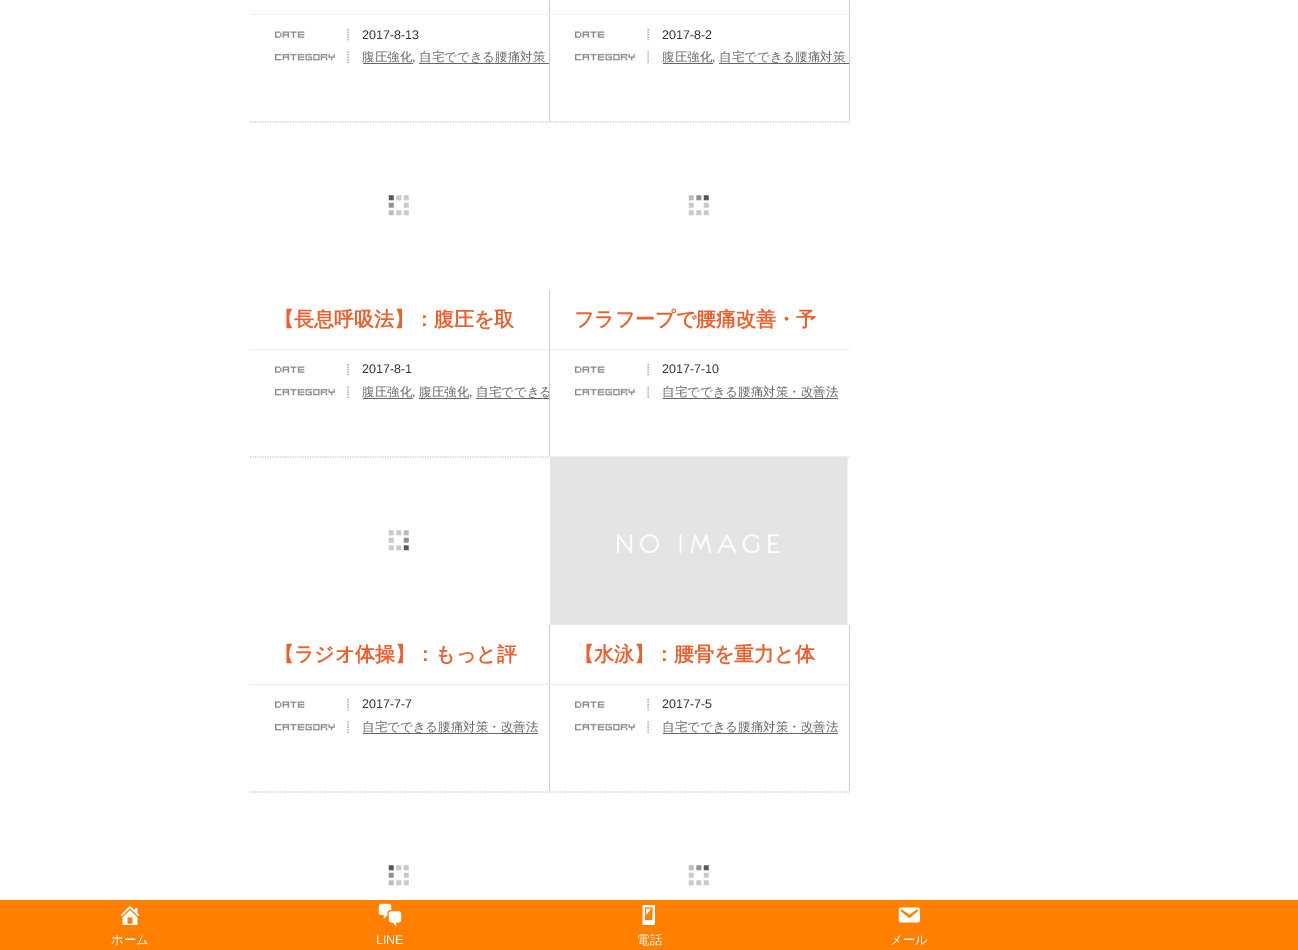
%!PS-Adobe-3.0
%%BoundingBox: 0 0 1298 950
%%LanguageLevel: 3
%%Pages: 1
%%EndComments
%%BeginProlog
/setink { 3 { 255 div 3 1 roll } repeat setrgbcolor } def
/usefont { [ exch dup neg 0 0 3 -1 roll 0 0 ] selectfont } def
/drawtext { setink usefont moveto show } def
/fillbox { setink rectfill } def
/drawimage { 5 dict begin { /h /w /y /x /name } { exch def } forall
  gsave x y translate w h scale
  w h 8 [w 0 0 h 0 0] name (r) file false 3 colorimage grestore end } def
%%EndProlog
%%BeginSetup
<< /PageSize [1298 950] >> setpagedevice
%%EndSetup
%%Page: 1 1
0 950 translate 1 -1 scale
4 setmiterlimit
0 0 1298 950 255 255 255 fillbox
204 204 204 setink
1.2 setlinewidth
[1.25 1.25] 0 setdash
250 122 moveto 550 122 lineto stroke
549 0 1 121 204 204 204 fillbox
250 14 300 1 238 238 238 fillbox
(assets/img1.rgb) 275 29 74 12 drawimage
(2017-8-13) 362 39 /LiberationSans-Regular 12.5 51 51 51 drawtext
(assets/img2.rgb) 275 51 74 12 drawimage
(腹圧強化) 362 61 /WenQuanYiZenHei-Medium 12.5 102 102 102 drawtext
363 63 50 1 102 102 102 fillbox
(,) 412 61 /LiberationSans-Regular 12.5 51 51 51 drawtext
419 63 130 1 102 102 102 fillbox
(自宅でできる腰痛対策) 419 61 /WenQuanYiZenHei-Medium 12.5 102 102 102 drawtext
204 204 204 setink
550 122 moveto 850 122 lineto stroke
849 0 1 121 204 204 204 fillbox
550 14 300 1 238 238 238 fillbox
(assets/img1.rgb) 575 29 74 12 drawimage
(2017-8-2) 662 39 /LiberationSans-Regular 12.5 51 51 51 drawtext
(assets/img2.rgb) 575 51 74 12 drawimage
(腹圧強化) 662 61 /WenQuanYiZenHei-Medium 12.5 102 102 102 drawtext
663 63 50 1 102 102 102 fillbox
(,) 712 61 /LiberationSans-Regular 12.5 51 51 51 drawtext
719 63 130 1 102 102 102 fillbox
(自宅でできる腰痛対策) 719 61 /WenQuanYiZenHei-Medium 12.5 102 102 102 drawtext
204 204 204 setink
250 457 moveto 550 457 lineto stroke
(assets/img3.rgb) 388 195 21 21 drawimage
549 290 1 166 204 204 204 fillbox
250 349 600 1 238 238 238 fillbox
(【長息呼吸法】：腹圧を取) 274 326 /WenQuanYiZenHei-Bold 20 232 98 49 drawtext
(assets/img1.rgb) 275 364 74 12 drawimage
(2017-8-1) 362 373 /LiberationSans-Regular 12.5 51 51 51 drawtext
(assets/img2.rgb) 275 386 74 12 drawimage
(腹圧強化) 362 396 /WenQuanYiZenHei-Medium 12.5 102 102 102 drawtext
363 398 50 1 102 102 102 fillbox
(,) 412 396 /LiberationSans-Regular 12.5 51 51 51 drawtext
(腹圧強化) 419 396 /WenQuanYiZenHei-Medium 12.5 102 102 102 drawtext
419 398 50 1 102 102 102 fillbox
(,) 469 396 /LiberationSans-Regular 12.5 51 51 51 drawtext
476 398 73 1 102 102 102 fillbox
gsave
250 350 299 106 rectclip
(自宅でできる) 476 396 /WenQuanYiZenHei-Medium 12.5 102 102 102 drawtext
grestore
204 204 204 setink
550 457 moveto 850 457 lineto stroke
(assets/img4.rgb) 688 195 21 21 drawimage
(フラフープで腰痛改善・予) 574 326 /WenQuanYiZenHei-Bold 20 232 98 49 drawtext
(assets/img1.rgb) 575 364 74 12 drawimage
(2017-7-10) 662 373 /LiberationSans-Regular 12.5 51 51 51 drawtext
(assets/img2.rgb) 575 386 74 12 drawimage
663 398 175 1 102 102 102 fillbox
(自宅でできる腰痛対策・改善法) 662 396 /WenQuanYiZenHei-Medium 12.5 102 102 102 drawtext
204 204 204 setink
250 792 moveto 550 792 lineto stroke
(assets/img5.rgb) 388 530 21 21 drawimage
549 625 1 166 204 204 204 fillbox
250 684 300 1 238 238 238 fillbox
(【ラジオ体操】：もっと評) 274 661 /WenQuanYiZenHei-Bold 20 232 98 49 drawtext
(assets/img1.rgb) 275 699 74 12 drawimage
(2017-7-7) 362 708 /LiberationSans-Regular 12.5 51 51 51 drawtext
(assets/img2.rgb) 275 721 74 12 drawimage
363 733 175 1 102 102 102 fillbox
(自宅でできる腰痛対策・改善法) 362 731 /WenQuanYiZenHei-Medium 12.5 102 102 102 drawtext
204 204 204 setink
550 792 moveto 850 792 lineto stroke
(assets/img6.rgb) 550 456 298 169 drawimage
849 625 1 166 204 204 204 fillbox
550 684 300 1 238 238 238 fillbox
(【水泳】：腰骨を重力と体) 574 661 /WenQuanYiZenHei-Bold 20 232 98 49 drawtext
(assets/img1.rgb) 575 699 74 12 drawimage
(2017-7-5) 662 708 /LiberationSans-Regular 12.5 51 51 51 drawtext
(assets/img2.rgb) 575 721 74 12 drawimage
663 733 175 1 102 102 102 fillbox
(自宅でできる腰痛対策・改善法) 662 731 /WenQuanYiZenHei-Medium 12.5 102 102 102 drawtext
(assets/img3.rgb) 388 865 21 21 drawimage
(assets/img4.rgb) 688 865 21 21 drawimage
0 900 1298 50 255 127 0 fillbox
(assets/img7.rgb) 120 905 20 20 drawimage
(ホーム) 111 944 /WenQuanYiZenHei-Medium 12.5 255 255 255 drawtext
(assets/img8.rgb) 378 903 24 24 drawimage
(LINE) 376 944 /LiberationSans-Regular 12.5 255 255 255 drawtext
(assets/img9.rgb) 642 905 13 20 drawimage
(電話) 637 944 /WenQuanYiZenHei-Medium 12.5 255 255 255 drawtext
(assets/img10.rgb) 898 907 22 16 drawimage
(メール) 890 944 /WenQuanYiZenHei-Medium 12.5 255 255 255 drawtext
showpage
%%EOF
